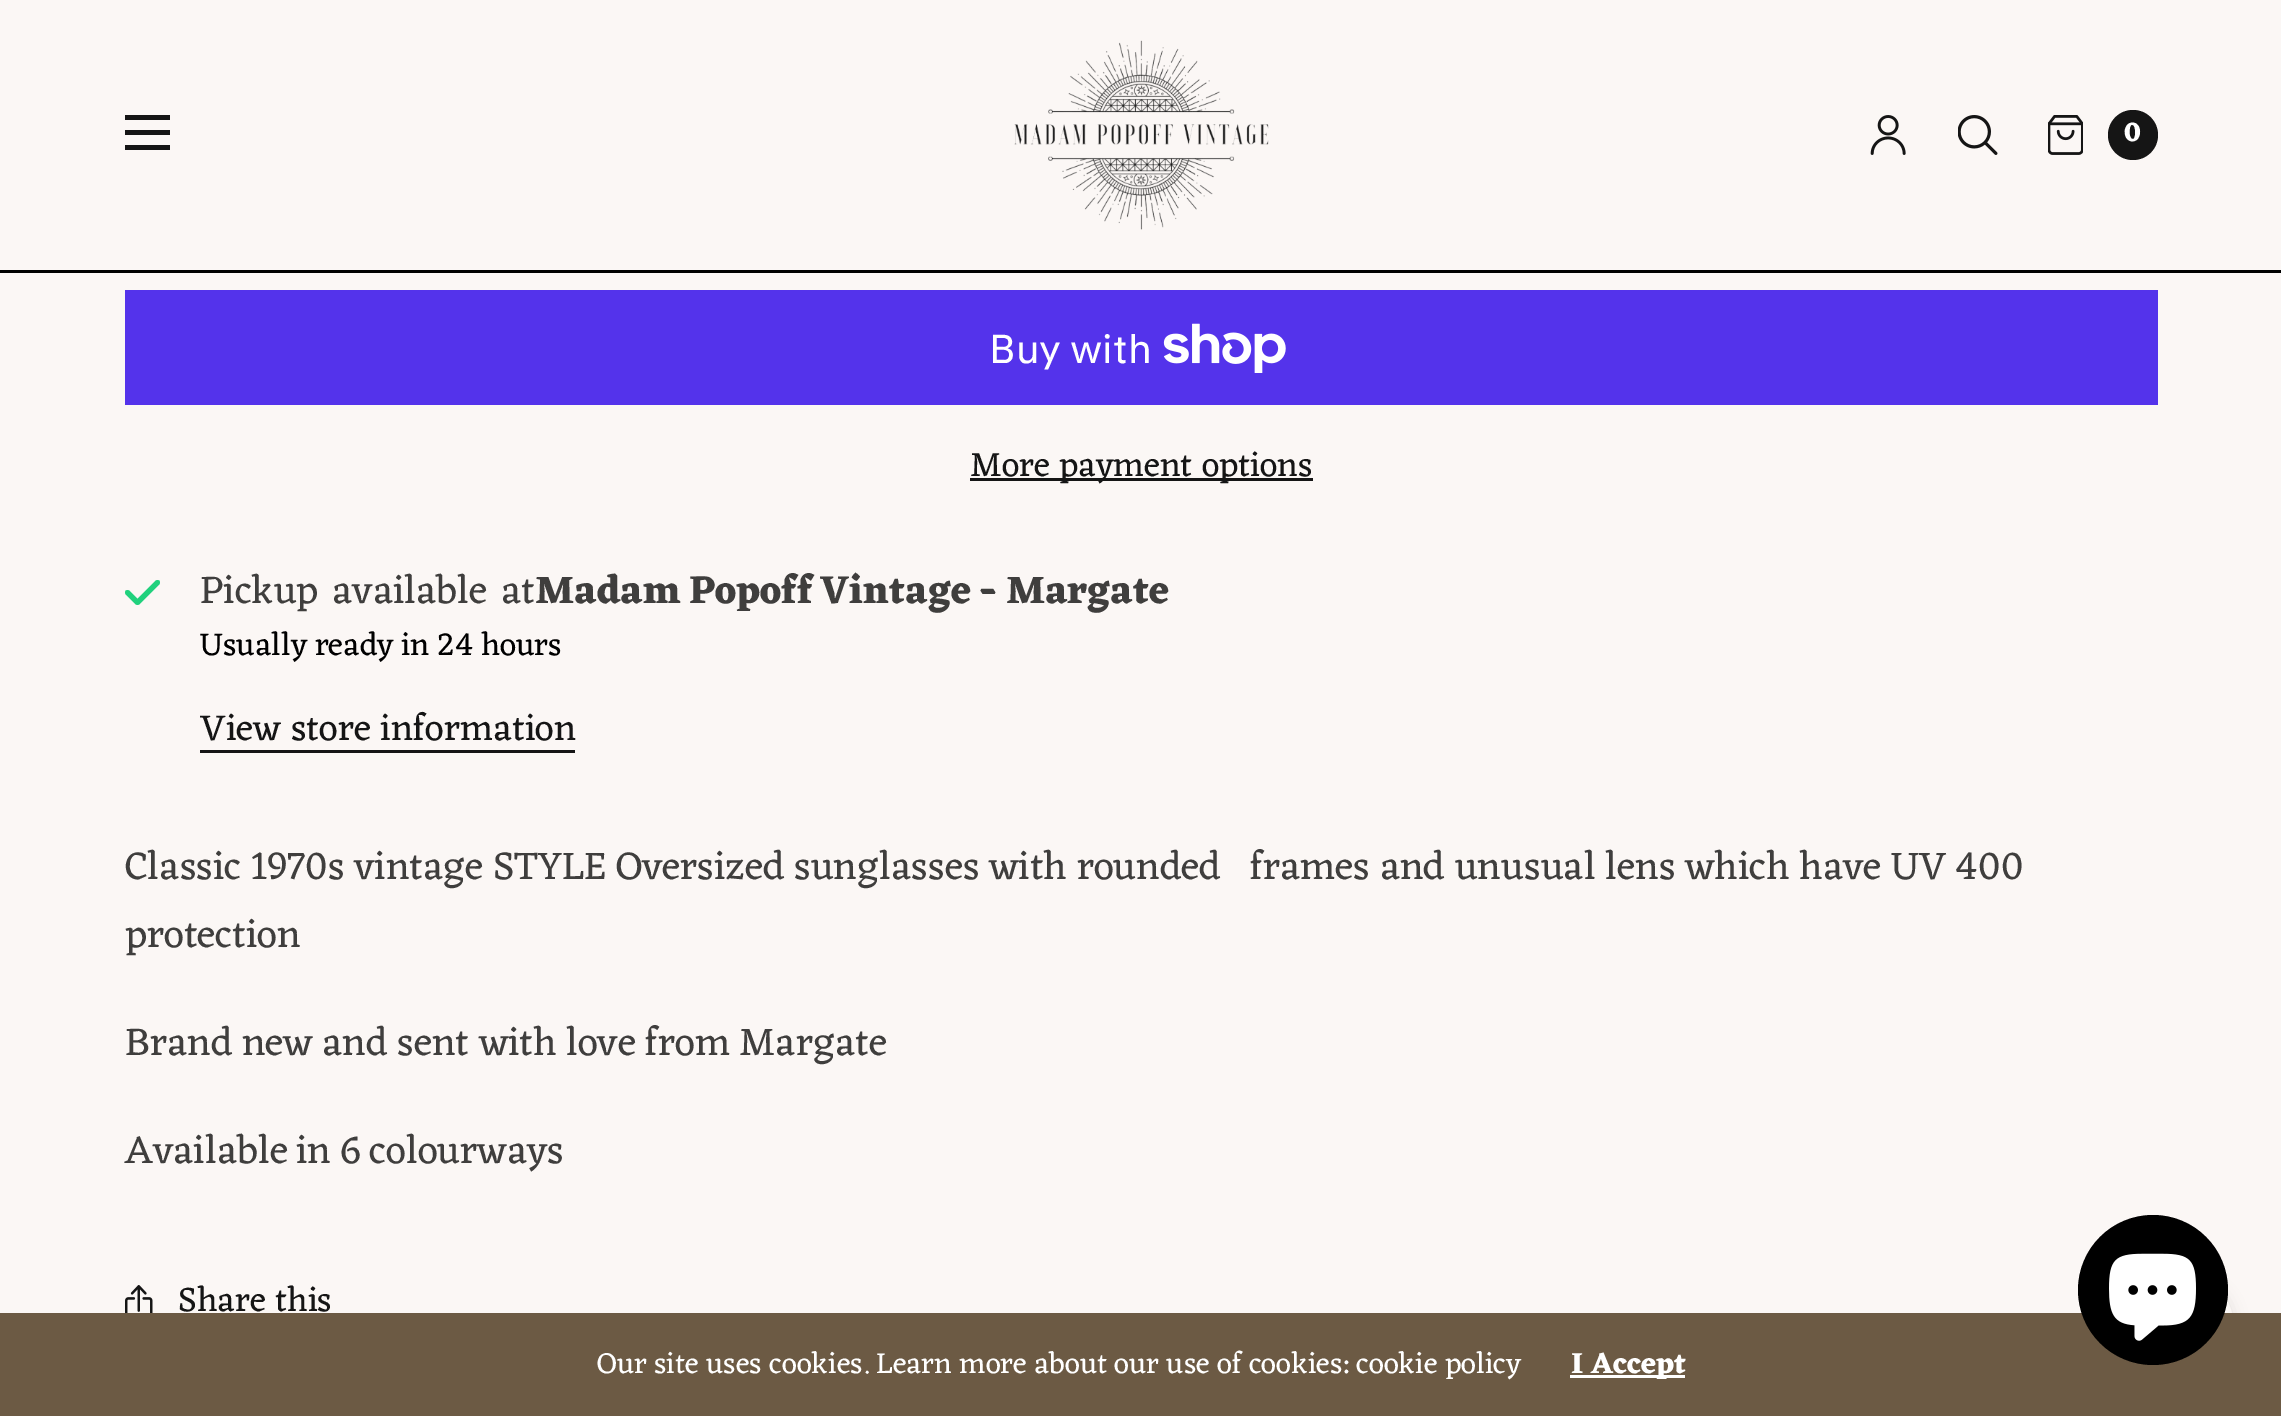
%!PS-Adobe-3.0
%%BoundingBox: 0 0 2281 1416
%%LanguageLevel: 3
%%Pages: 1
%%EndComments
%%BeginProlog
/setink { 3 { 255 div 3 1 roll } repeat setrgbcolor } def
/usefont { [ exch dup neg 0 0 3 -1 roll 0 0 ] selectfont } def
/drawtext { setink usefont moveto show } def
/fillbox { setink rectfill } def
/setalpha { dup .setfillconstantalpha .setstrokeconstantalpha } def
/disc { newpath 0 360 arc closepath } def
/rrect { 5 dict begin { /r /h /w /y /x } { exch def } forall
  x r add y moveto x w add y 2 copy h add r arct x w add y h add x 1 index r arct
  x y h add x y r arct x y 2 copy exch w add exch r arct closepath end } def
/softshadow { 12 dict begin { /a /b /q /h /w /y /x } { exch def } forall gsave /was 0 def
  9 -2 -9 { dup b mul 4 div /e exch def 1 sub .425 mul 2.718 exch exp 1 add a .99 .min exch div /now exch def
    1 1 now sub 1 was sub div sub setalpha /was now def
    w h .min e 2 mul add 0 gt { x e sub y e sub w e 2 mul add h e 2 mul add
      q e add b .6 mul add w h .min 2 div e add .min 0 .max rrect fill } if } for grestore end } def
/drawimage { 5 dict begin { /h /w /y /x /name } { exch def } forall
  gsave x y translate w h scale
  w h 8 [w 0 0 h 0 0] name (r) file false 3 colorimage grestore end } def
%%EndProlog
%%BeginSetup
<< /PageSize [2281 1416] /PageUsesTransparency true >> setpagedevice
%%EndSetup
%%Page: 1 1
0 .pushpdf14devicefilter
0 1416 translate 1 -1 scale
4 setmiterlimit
0 0 2281 1416 251 247 245 fillbox
0 270 2281 3 0 0 0 fillbox
125 115 45 5 21 21 21 fillbox
125 130 45 5 21 21 21 fillbox
125 145 45 5 21 21 21 fillbox
(assets/img1.rgb) 1014 40 255 190 drawimage
(assets/img2.rgb) 1870 115 36 40 drawimage
(assets/img3.rgb) 1958 115 40 40 drawimage
(assets/img4.rgb) 2048 115 35 40 drawimage
2133 135 25 disc fill
(0) 2124 141 /Eczar-Bold 28 255 255 255 drawtext
125 290 2033 115 84 51 235 fillbox
(Buy with) 989 363 /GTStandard-Regular 40 255 255 255 drawtext
(assets/img5.rgb) 1163 323 123 50 drawimage
970 478 343 3 21 21 21 fillbox
(More payment options) 970 476 /Eczar-Regular 35 21 21 21 drawtext
33 209 125 setink
5 setlinewidth
1 setlinecap
1 setlinejoin
157.5 582.5 moveto 137.5 602.5 lineto 127.5 592.5 lineto stroke
/Eczar-Regular 40 usefont
63 62 61 setink
200 603 moveto 3 0 32 (Pickup available at) widthshow
/Eczar-Bold 40 usefont
535 603 moveto -2.5 0 32 (Madam Popoff Vintage - Margate) widthshow
/Eczar-Regular 32.5 usefont
0 0 0 setink
200 655 moveto -1 0 32 (Usually ready in 24 hours) widthshow
(View store information) 200 740 /Eczar-Regular 37.5 21 21 21 drawtext
200 750 375 3 21 21 21 fillbox
/Eczar-Regular 40 usefont
63 62 61 setink
125 879 moveto -1 0 32 (Classic 1970s vintage STYLE Oversized sunglasses with rounded   frames and unusual lens which have UV 400) widthshow
(protection) 125 947 /Eczar-Regular 40 63 62 61 drawtext
125 1055 moveto -1.25 0 32 (Brand new and sent with love from Margate) widthshow
125 1163 moveto -2 0 32 (Available in 6 colourways) widthshow
(assets/img6.rgb) 125 1285 28 28 drawimage
(Share this) 178 1311 /Eczar-Regular 35 21 21 21 drawtext
0 0 0 setink
2143 1280 90 90 45 7.5 0.1 softshadow
251 247 245 setink
2188 1323 45 disc fill
0 1313 2281 103 108 90 68 fillbox
0 0 0 setink
2153 1290 75 disc fill
(assets/img7.rgb) 2109 1253 87 88 drawimage
/Eczar-Regular 30 usefont
255 255 255 setink
597 1373 moveto -0.5 0 32 (Our site uses cookies. Learn more about our use of cookies: cookie policy) widthshow
1570 1375 115 3 255 255 255 fillbox
(I Accept) 1571 1373 /Eczar-Bold 30 255 255 255 drawtext
.poppdf14devicefilter showpage
%%EOF
